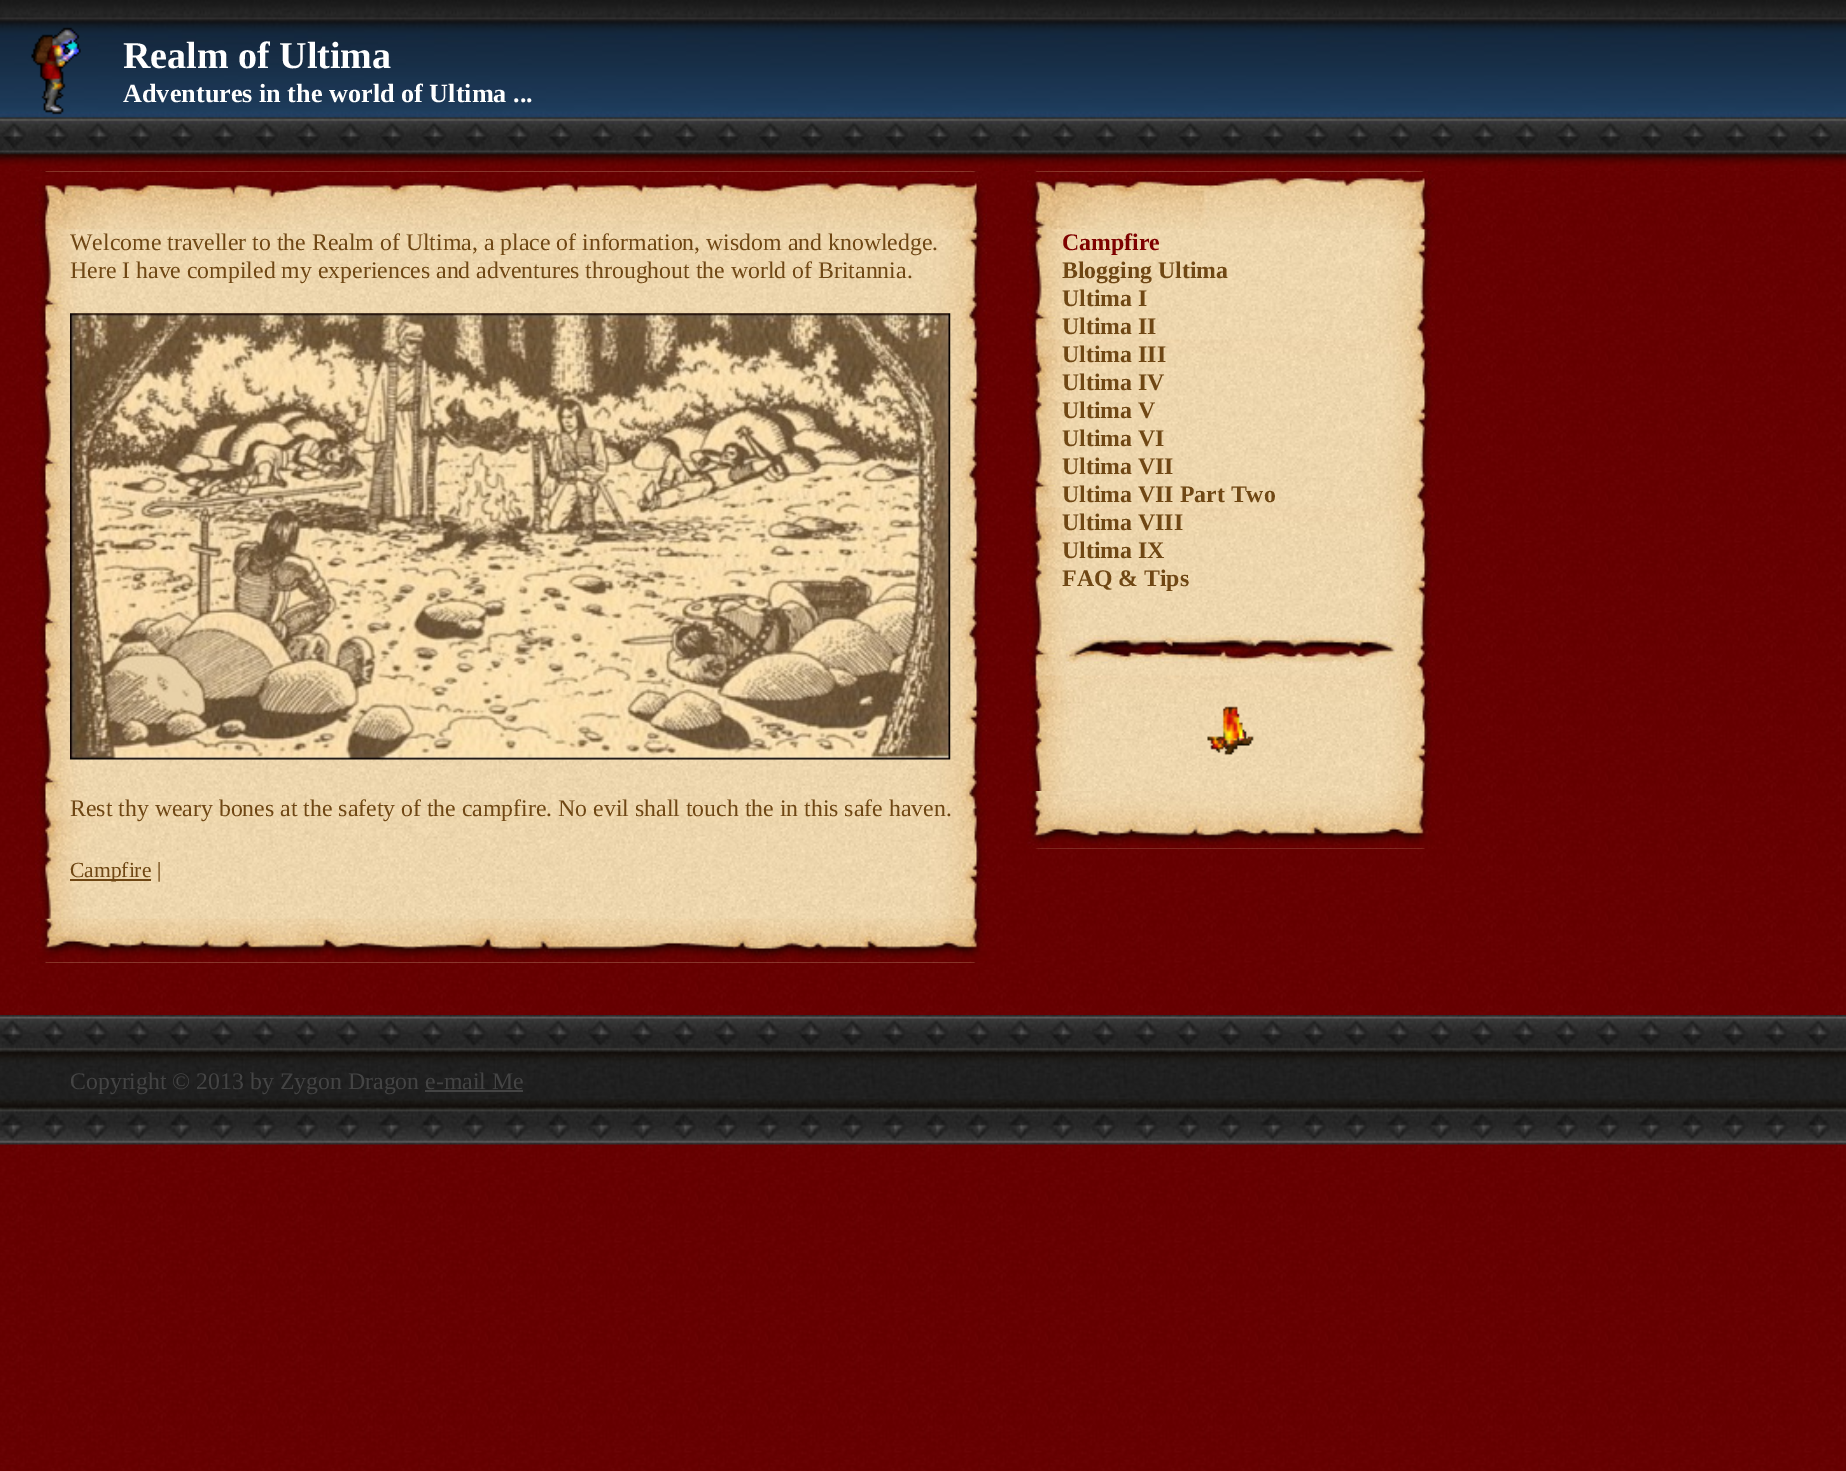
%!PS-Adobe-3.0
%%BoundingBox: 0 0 1846 1471
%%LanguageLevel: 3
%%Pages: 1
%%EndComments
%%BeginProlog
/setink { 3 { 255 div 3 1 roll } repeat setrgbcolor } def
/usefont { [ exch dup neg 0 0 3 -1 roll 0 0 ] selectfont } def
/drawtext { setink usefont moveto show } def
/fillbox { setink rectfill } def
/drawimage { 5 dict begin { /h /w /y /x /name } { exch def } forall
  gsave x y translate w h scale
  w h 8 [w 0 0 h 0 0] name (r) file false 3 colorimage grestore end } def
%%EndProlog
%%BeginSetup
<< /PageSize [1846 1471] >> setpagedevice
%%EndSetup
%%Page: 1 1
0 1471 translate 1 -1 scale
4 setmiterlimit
0 0 1846 1471 255 255 255 fillbox
(assets/img1.rgb) 0 171 1846 1300 drawimage
(assets/img2.rgb) 0 0 1846 171 drawimage
(assets/img3.rgb) 31 27 50 88 drawimage
(Realm of Ultima) 123 68 /LiberationSerif-Bold 38 255 255 255 drawtext
(Adventures in the world of Ultima ...) 123 102 /LiberationSerif-Bold 26.2 255 255 255 drawtext
(assets/img4.rgb) 35 171 952 792 drawimage
(assets/img5.rgb) 35 171 952 59 drawimage
(Welcome traveller to the Realm of Ultima, a place of information, wisdom and knowledge.) 70 250 /LiberationSerif-Regular 23.8 111 71 20 drawtext
(Here I have compiled my experiences and adventures throughout the world of Britannia.) 70 278 /LiberationSerif-Regular 23.8 111 71 20 drawtext
(assets/img6.rgb) 70 313 881 447 drawimage
(Rest thy weary bones at the safety of the campfire. No evil shall touch the in this safe haven.) 70 816 /LiberationSerif-Regular 23.8 111 71 20 drawtext
70 879 81 2 111 71 20 fillbox
(Campfire |) 70 877 /LiberationSerif-Regular 21.5 111 71 20 drawtext
(assets/img7.rgb) 35 918 952 45 drawimage
(assets/img8.rgb) 1027 171 408 678 drawimage
(assets/img9.rgb) 1027 171 408 59 drawimage
(assets/img10.rgb) 1065 635 332 29 drawimage
(Campfire) 1062 250 /LiberationSerif-Bold 23.8 126 1 0 drawtext
(Blogging Ultima) 1062 278 /LiberationSerif-Bold 23.8 111 71 20 drawtext
(Ultima I) 1062 306 /LiberationSerif-Bold 23.8 111 71 20 drawtext
(Ultima II) 1062 334 /LiberationSerif-Bold 23.8 111 71 20 drawtext
(Ultima III) 1062 362 /LiberationSerif-Bold 23.8 111 71 20 drawtext
(Ultima IV) 1062 390 /LiberationSerif-Bold 23.8 111 71 20 drawtext
(Ultima V) 1062 418 /LiberationSerif-Bold 23.8 111 71 20 drawtext
(Ultima VI) 1062 446 /LiberationSerif-Bold 23.8 111 71 20 drawtext
(Ultima VII) 1062 474 /LiberationSerif-Bold 23.8 111 71 20 drawtext
(Ultima VII Part Two) 1062 502 /LiberationSerif-Bold 23.8 111 71 20 drawtext
(Ultima VIII) 1062 530 /LiberationSerif-Bold 23.8 111 71 20 drawtext
(Ultima IX) 1062 558 /LiberationSerif-Bold 23.8 111 71 20 drawtext
(FAQ & Tips) 1062 586 /LiberationSerif-Bold 23.8 111 71 20 drawtext
(assets/img11.rgb) 1207 706 47 49 drawimage
(assets/img12.rgb) 1027 791 408 58 drawimage
(assets/img13.rgb) 0 1015 1846 130 drawimage
(Copyright © 2013 by Zygon Dragon e-mail Me) 70 1089 /LiberationSerif-Regular 23.8 68 68 68 drawtext
425 1090 98 2 68 68 68 fillbox
showpage
%%EOF
